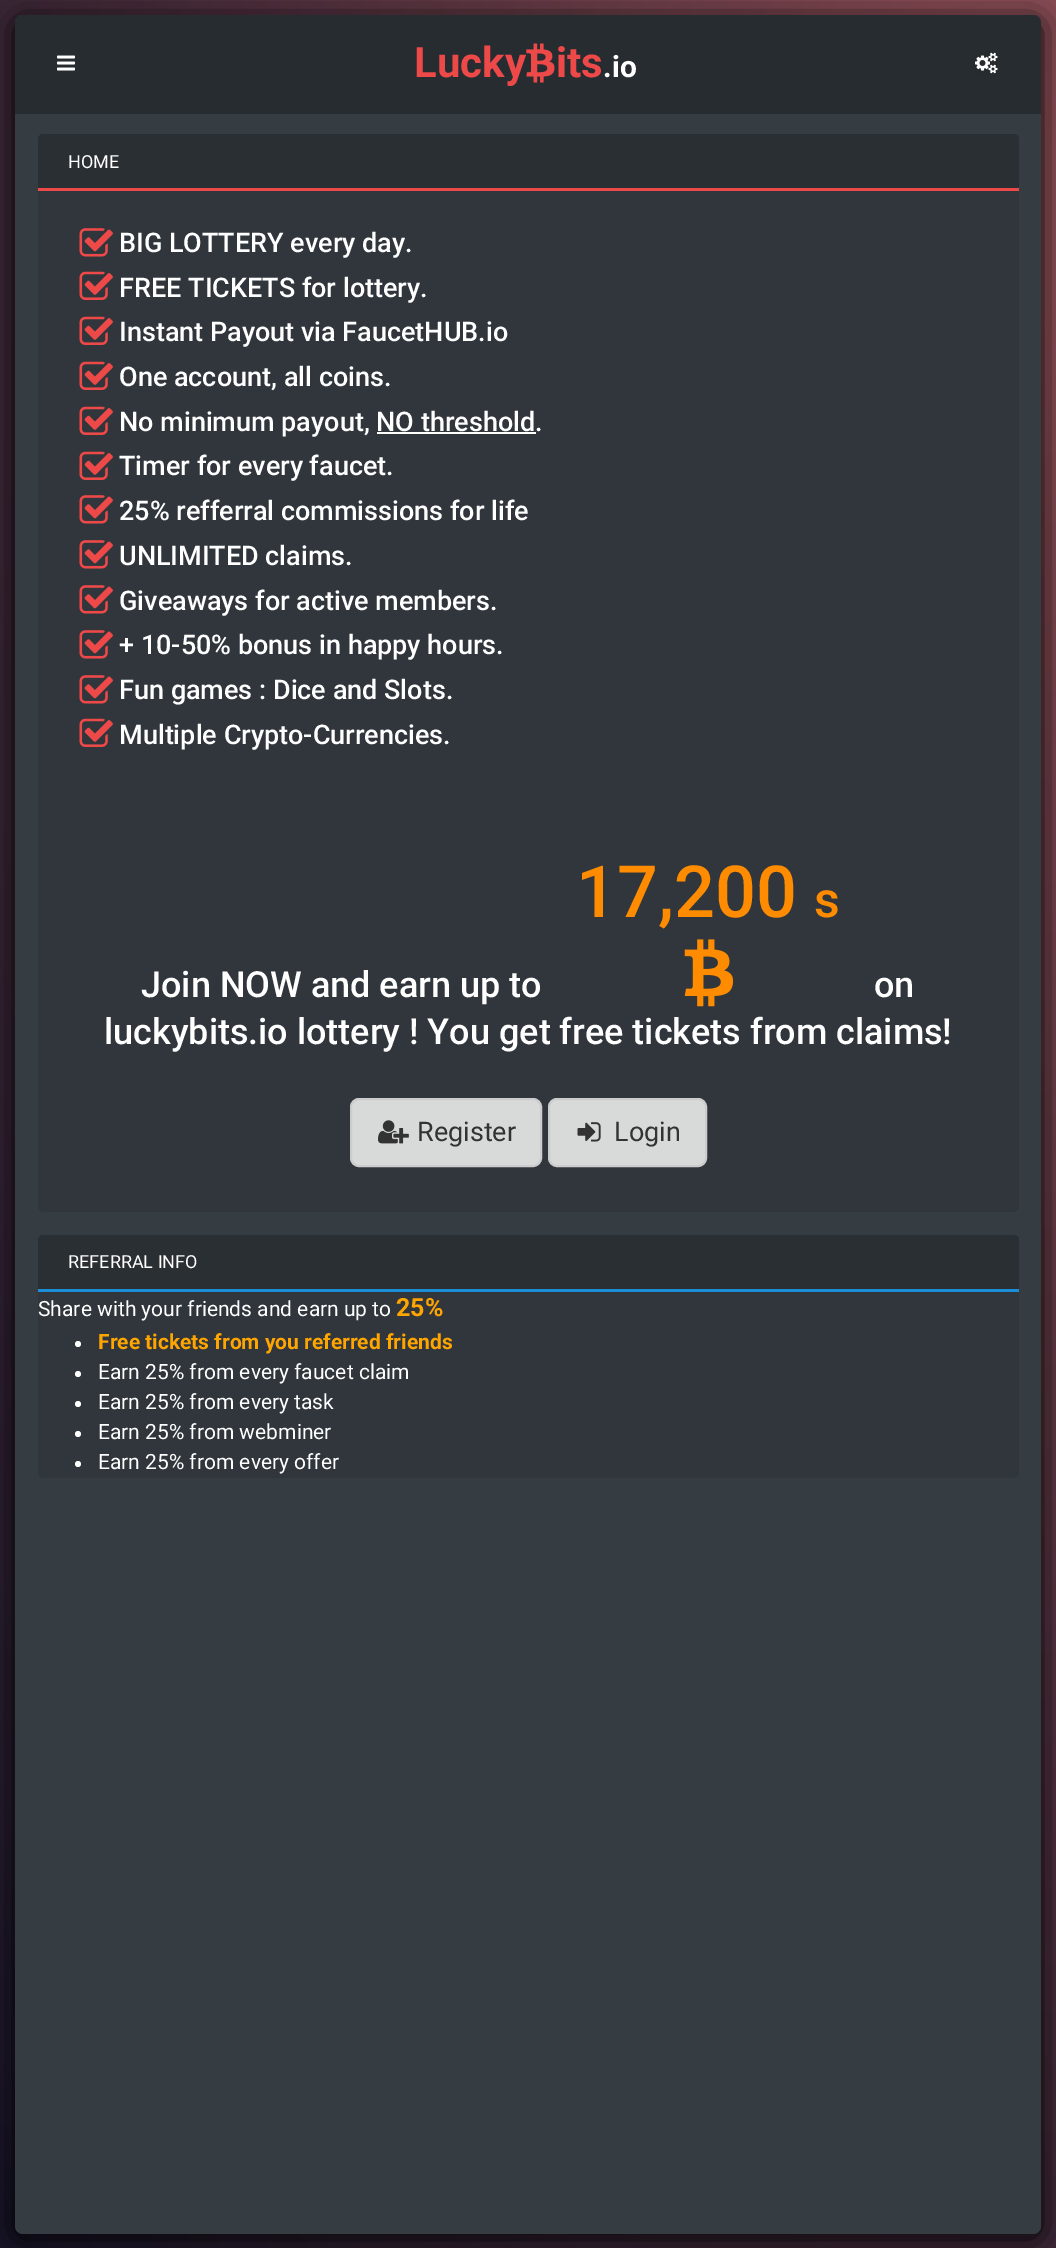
%!PS-Adobe-3.0
%%BoundingBox: 0 0 1056 2248
%%LanguageLevel: 3
%%Pages: 1
%%EndComments
%%BeginProlog
/setink { 3 { 255 div 3 1 roll } repeat setrgbcolor } def
/usefont { [ exch dup neg 0 0 3 -1 roll 0 0 ] selectfont } def
/drawtext { setink usefont moveto show } def
/fillbox { setink rectfill } def
/setalpha { dup .setfillconstantalpha .setstrokeconstantalpha } def
/disc { newpath 0 360 arc closepath } def
/rrect { 5 dict begin { /r /h /w /y /x } { exch def } forall
  x r add y moveto x w add y 2 copy h add r arct x w add y h add x 1 index r arct
  x y h add x y r arct x y 2 copy exch w add exch r arct closepath end } def
/softshadow { 12 dict begin { /a /b /q /h /w /y /x } { exch def } forall gsave /was 0 def
  9 -2 -9 { dup b mul 4 div /e exch def 1 sub .425 mul 2.718 exch exp 1 add a .99 .min exch div /now exch def
    1 1 now sub 1 was sub div sub setalpha /was now def
    w h .min e 2 mul add 0 gt { x e sub y e sub w e 2 mul add h e 2 mul add
      q e add b .6 mul add w h .min 2 div e add .min 0 .max rrect fill } if } for grestore end } def
/drawimage { 5 dict begin { /h /w /y /x /name } { exch def } forall
  gsave x y translate w h scale
  w h 8 [w 0 0 h 0 0] name (r) file false 3 colorimage grestore end } def
%%EndProlog
%%BeginSetup
<< /PageSize [1056 2248] /PageUsesTransparency true >> setpagedevice
%%EndSetup
%%Page: 1 1
0 .pushpdf14devicefilter
0 2248 translate 1 -1 scale
4 setmiterlimit
0 0 1056 2248 255 255 255 fillbox
gsave 0 0 moveto 1056 0 lineto 1056 2248 lineto 0 2248 lineto closepath clip newpath 1003 225 translate 1419 2862 scale
<< /ShadingType 3 /ColorSpace /DeviceRGB /Coords [0 0 0 0 0 1] /Extend [true true] /Function << /FunctionType 2 /Domain [0 1] /C0 [0.58 0.322 0.353] /C1 [0.094 0.082 0.157] /N 1 >> >> shfill grestore
0 0 0 setink
15 20 1026 2218 8 15 1 softshadow
53 60 66 setink
15 15 1026 2219 8 rrect fill
39 44 48 setink
23 15 moveto 1033 15 lineto 1037.5 15 1041 18.5 1041 23 curveto 1041 114 lineto 15 114 lineto 15 23 lineto 15 18.5 18.5 15 23 15 curveto closepath fill
(assets/img1.rgb) 57 55 18 16 drawimage
(Lucky) 414 77 /Roboto-Bold 42 237 73 73 drawtext
(assets/img2.rgb) 526 43 29 40 drawimage
(its) 556 77 /Roboto-Bold 42 237 73 73 drawtext
(.io) 603 77 /Roboto-Bold 30 255 255 255 drawtext
(assets/img3.rgb) 975 52 23 22 drawimage
48 54 60 setink
38 134 981 1078 6 rrect fill
0.5 setalpha
36 41 44 setink
43 134 moveto 1014 134 lineto 1017 134 1019 136 1019 139 curveto 1019 191 lineto 38 191 lineto 38 139 lineto 38 136 40 134 43 134 curveto closepath fill
1 setalpha
38 188 981 3 237 73 73 fillbox
(HOME) 68 168 /Roboto-Regular 18 255 255 255 drawtext
(assets/img4.rgb) 79 228 34 29 drawimage
(BIG LOTTERY every day.) 119 252 /Roboto-Medium 27 255 255 255 drawtext
(assets/img5.rgb) 79 271 34 29 drawimage
(FREE TICKETS for lottery.) 119 297 /Roboto-Medium 27 255 255 255 drawtext
(assets/img5.rgb) 79 316 34 29 drawimage
(Instant Payout via FaucetHUB.io) 119 341 /Roboto-Medium 27 255 255 255 drawtext
(assets/img5.rgb) 79 361 34 29 drawimage
(One account, all coins.) 119 386 /Roboto-Medium 27 255 255 255 drawtext
(assets/img5.rgb) 79 406 34 29 drawimage
(No minimum payout, NO threshold.) 119 431 /Roboto-Medium 27 255 255 255 drawtext
377 432 159 2 255 255 255 fillbox
(assets/img5.rgb) 79 451 34 29 drawimage
(Timer for every faucet.) 119 475 /Roboto-Medium 27 255 255 255 drawtext
(assets/img4.rgb) 79 495 34 29 drawimage
(25% refferral commissions for life) 119 520 /Roboto-Medium 27 255 255 255 drawtext
(assets/img4.rgb) 79 540 34 29 drawimage
(UNLIMITED claims.) 119 565 /Roboto-Medium 27 255 255 255 drawtext
(assets/img4.rgb) 79 585 34 29 drawimage
(Giveaways for active members.) 119 610 /Roboto-Medium 27 255 255 255 drawtext
(assets/img4.rgb) 79 630 34 29 drawimage
(+ 10-50% bonus in happy hours.) 119 654 /Roboto-Medium 27 255 255 255 drawtext
(assets/img4.rgb) 79 675 34 29 drawimage
(Fun games : Dice and Slots.) 119 699 /Roboto-Medium 27 255 255 255 drawtext
(assets/img5.rgb) 79 718 34 29 drawimage
(Multiple Crypto-Currencies.) 119 744 /Roboto-Medium 27 255 255 255 drawtext
(17,200) 576 917 /Roboto-Medium 72 255 140 0 drawtext
(s) 814 917 /Roboto-Medium 50 255 140 0 drawtext
(assets/img6.rgb) 684 939 50 68 drawimage
(Join NOW and earn up to) 141 997 /Roboto-Medium 36 255 255 255 drawtext
(on) 874 997 /Roboto-Medium 36 255 255 255 drawtext
(luckybits.io lottery ! You get free tickets from claims!) 104 1044 /Roboto-Medium 36 255 255 255 drawtext
216 218 218 setink
351 1099 190 67 8 rrect gsave fill grestore
204 204 204 setink
2 setlinewidth
stroke
(assets/img7.rgb) 378 1120 31 24 drawimage
(Register) 417 1141 /Roboto-Regular 27 51 51 51 drawtext
216 218 218 setink
549 1099 157 67 8 rrect gsave fill grestore
204 204 204 setink
stroke
(assets/img8.rgb) 577 1122 24 20 drawimage
(Login) 614 1141 /Roboto-Regular 27 51 51 51 drawtext
48 54 60 setink
38 1235 981 243 6 rrect fill
0.5 setalpha
36 41 44 setink
43 1235 moveto 1014 1235 lineto 1017 1235 1019 1237 1019 1240 curveto 1019 1292 lineto 38 1292 lineto 38 1240 lineto 38 1237 40 1235 43 1235 curveto closepath fill
1 setalpha
38 1289 981 3 28 142 215 fillbox
(REFERRAL INFO) 68 1268 /Roboto-Regular 18 255 255 255 drawtext
(Share with your friends and earn up to) 38 1316 /Roboto-Regular 21 255 255 255 drawtext
(25%) 396 1316 /Roboto-Bold 25 255 165 0 drawtext
255 255 255 setink
78 1344 3 disc fill
(Free tickets from you referred friends) 98 1349 /Roboto-Bold 21 255 165 0 drawtext
255 255 255 setink
78 1374 3 disc fill
(Earn 25% from every faucet claim) 98 1379 /Roboto-Regular 21 255 255 255 drawtext
78 1404 3 disc fill
(Earn 25% from every task) 98 1409 /Roboto-Regular 21 255 255 255 drawtext
78 1434 3 disc fill
(Earn 25% from webminer) 98 1439 /Roboto-Regular 21 255 255 255 drawtext
78 1464 3 disc fill
(Earn 25% from every offer) 98 1469 /Roboto-Regular 21 255 255 255 drawtext
.poppdf14devicefilter showpage
%%EOF
